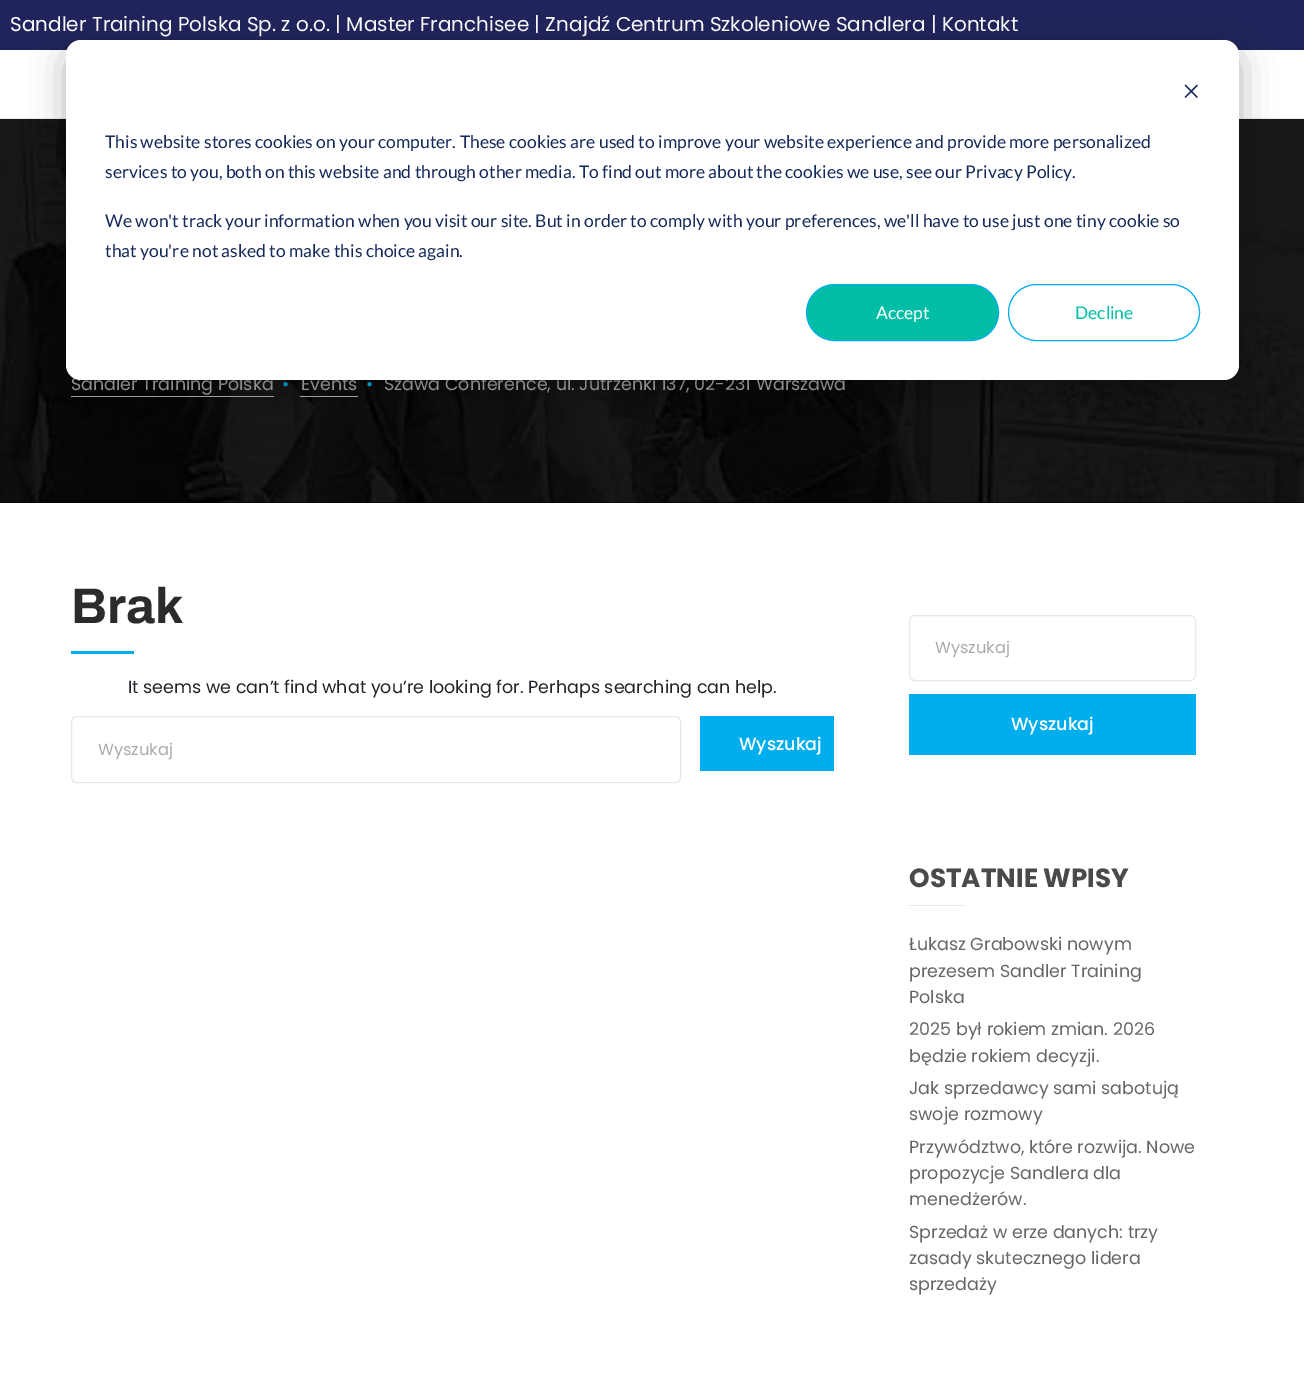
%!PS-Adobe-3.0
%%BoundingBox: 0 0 1304 1379
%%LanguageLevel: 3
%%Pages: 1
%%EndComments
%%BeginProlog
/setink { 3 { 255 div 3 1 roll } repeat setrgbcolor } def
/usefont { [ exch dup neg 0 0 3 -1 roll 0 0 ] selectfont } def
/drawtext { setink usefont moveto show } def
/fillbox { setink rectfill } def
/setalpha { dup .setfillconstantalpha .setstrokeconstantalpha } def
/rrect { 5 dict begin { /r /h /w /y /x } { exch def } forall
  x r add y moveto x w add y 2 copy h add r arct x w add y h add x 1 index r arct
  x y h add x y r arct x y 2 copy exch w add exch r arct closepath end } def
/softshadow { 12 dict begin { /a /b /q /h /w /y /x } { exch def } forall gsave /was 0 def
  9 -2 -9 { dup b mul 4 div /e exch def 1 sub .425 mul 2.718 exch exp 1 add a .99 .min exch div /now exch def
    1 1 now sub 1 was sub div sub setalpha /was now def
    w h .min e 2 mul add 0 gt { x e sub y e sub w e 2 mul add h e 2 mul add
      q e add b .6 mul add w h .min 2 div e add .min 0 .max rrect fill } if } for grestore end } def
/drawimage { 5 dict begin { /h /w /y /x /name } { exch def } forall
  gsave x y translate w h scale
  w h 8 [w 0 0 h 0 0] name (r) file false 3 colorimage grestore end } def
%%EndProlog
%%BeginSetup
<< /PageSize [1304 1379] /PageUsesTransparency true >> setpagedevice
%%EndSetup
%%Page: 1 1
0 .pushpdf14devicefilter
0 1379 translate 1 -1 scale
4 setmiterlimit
0 0 1304 1379 255 255 255 fillbox
0 0 1304 50 33 36 92 fillbox
0 0 0 setink
0 50 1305 69 0 6 0.11 softshadow
(Sandler Training Polska Sp. z o.o. | Master Franchisee | Znajdź Centrum Szkoleniowe Sandlera | Kontakt) 10 31 /Poppins-Regular 20 255 255 255 drawtext
0 50 1304 69 255 255 255 fillbox
0 119 1304 384 0 0 0 fillbox
(assets/img1.rgb) 0 118 1304 385 drawimage
(Sandler Training Polska) 71 390 /Poppins-Regular 17.5 170 170 170 drawtext
71 396 203 1 171 171 171 fillbox
(•) 282 390 /Poppins-Regular 17.5 0 173 237 drawtext
(Events) 301 390 /Poppins-Regular 17.5 170 170 170 drawtext
300 396 58 1 171 171 171 fillbox
(•) 366 390 /Poppins-Regular 17.5 0 173 237 drawtext
(Szawa Conference, ul. Jutrzenki 137, 02-231 Warszawa) 384 390 /Poppins-Regular 17.5 170 170 170 drawtext
(Brak) 71 623 /Archivo-Bold 50 43 43 43 drawtext
71 651 63 3 0 173 237 fillbox
(It seems we can’t find what you’re looking for. Perhaps searching can help.) 128 693 /Poppins-Regular 17.5 33 37 41 drawtext
234 230 230 setink
71.5 716.5 609 66 5.5 rrect stroke
(Wyszukaj) 98 755 /Poppins-Regular 16.25 170 170 170 drawtext
700 716 134 55 0 173 237 fillbox
(Wyszukaj) 739 750 /Poppins-Medium 17.5 255 255 255 drawtext
234 230 230 setink
909.5 615.5 286 65 5.5 rrect stroke
(Wyszukaj) 935 653 /Poppins-Regular 16.25 170 170 170 drawtext
909 694 287 61 0 173 237 fillbox
(Wyszukaj) 1011 730 /Poppins-Medium 17.5 255 255 255 drawtext
(OSTATNIE WPISY) 909 887 /Poppins-Bold 26.25 74 74 74 drawtext
909 905 56 1 234 230 230 fillbox
(Łukasz Grabowski nowym) 909 950 /Poppins-Regular 17.5 102 102 102 drawtext
(prezesem Sandler Training) 909 977 /Poppins-Regular 17.5 102 102 102 drawtext
(Polska) 909 1003 /Poppins-Regular 17.5 102 102 102 drawtext
(2025 był rokiem zmian. 2026) 909 1035 /Poppins-Regular 17.5 102 102 102 drawtext
(będzie rokiem decyzji.) 909 1062 /Poppins-Regular 17.5 102 102 102 drawtext
(Jak sprzedawcy sami sabotują) 909 1094 /Poppins-Regular 17.5 102 102 102 drawtext
(swoje rozmowy) 909 1120 /Poppins-Regular 17.5 102 102 102 drawtext
(Przywództwo, które rozwija. Nowe) 909 1153 /Poppins-Regular 17.5 102 102 102 drawtext
(propozycje Sandlera dla) 909 1179 /Poppins-Regular 17.5 102 102 102 drawtext
(menedżerów.) 909 1205 /Poppins-Regular 17.5 102 102 102 drawtext
(Sprzedaż w erze danych: trzy) 909 1238 /Poppins-Regular 17.5 102 102 102 drawtext
(zasady skutecznego lidera) 909 1264 /Poppins-Regular 17.5 102 102 102 drawtext
(sprzedaży) 909 1290 /Poppins-Regular 17.5 102 102 102 drawtext
0 0 0 setink
66 50 1173 340 15 17.5 0.28 softshadow
255 255 255 setink
66 40 1173 340 15 rrect fill
(assets/img2.rgb) 1184 84 14 14 drawimage
(This website stores cookies on your computer. These cookies are used to improve your website experience and provide more personalized) 105 148 /Lato-Regular 17.5 21 41 90 drawtext
(services to you, both on this website and through other media. To find out more about the cookies we use, see our Privacy Policy.) 105 178 /Lato-Regular 17.5 21 41 90 drawtext
(We won't track your information when you visit our site. But in order to comply with your preferences, we'll have to use just one tiny cookie so) 105 227 /Lato-Regular 17.5 21 41 90 drawtext
(that you're not asked to make this choice again.) 105 257 /Lato-Regular 17.5 21 41 90 drawtext
0 189 165 setink
806.5 284.5 192 56 28 rrect gsave fill grestore
0 173 237 setink
stroke
(Accept) 876 319 /Lato-Regular 17.5 255 255 255 drawtext
0 173 237 setink
1008.5 284.5 191 56 28 rrect stroke
(Decline) 1075 319 /Lato-Regular 17.5 0 189 165 drawtext
.poppdf14devicefilter showpage
%%EOF
